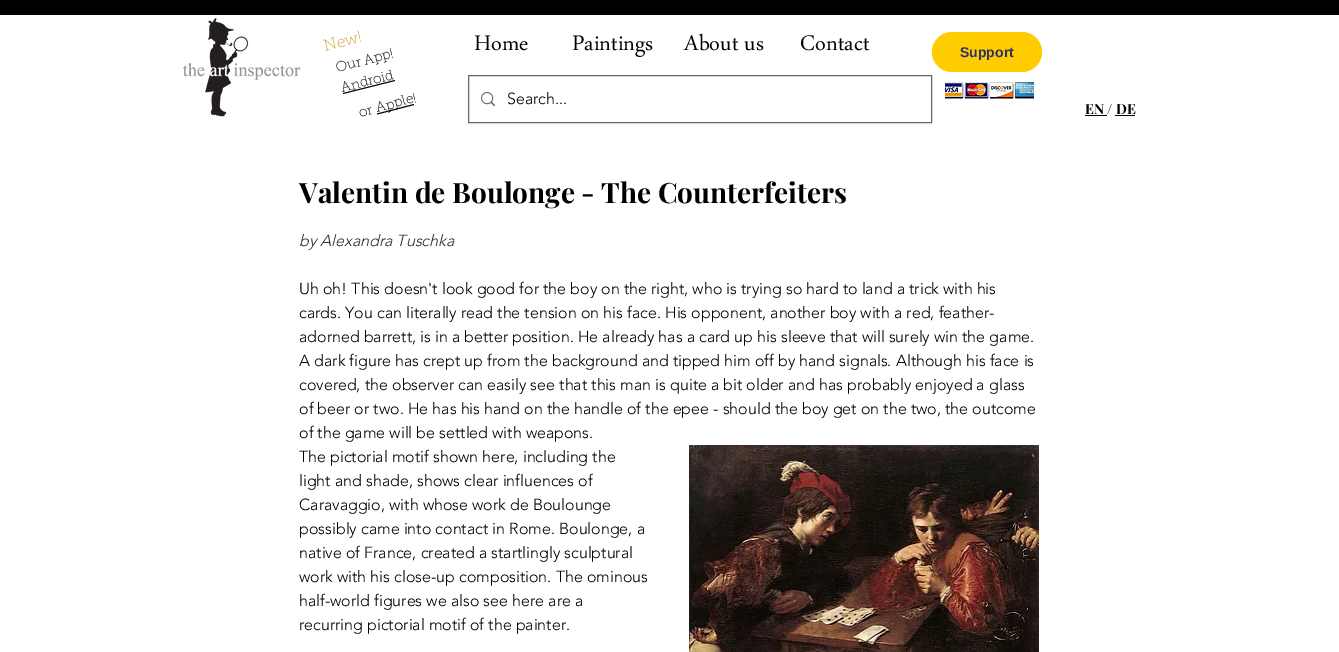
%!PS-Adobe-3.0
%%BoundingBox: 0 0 1339 652
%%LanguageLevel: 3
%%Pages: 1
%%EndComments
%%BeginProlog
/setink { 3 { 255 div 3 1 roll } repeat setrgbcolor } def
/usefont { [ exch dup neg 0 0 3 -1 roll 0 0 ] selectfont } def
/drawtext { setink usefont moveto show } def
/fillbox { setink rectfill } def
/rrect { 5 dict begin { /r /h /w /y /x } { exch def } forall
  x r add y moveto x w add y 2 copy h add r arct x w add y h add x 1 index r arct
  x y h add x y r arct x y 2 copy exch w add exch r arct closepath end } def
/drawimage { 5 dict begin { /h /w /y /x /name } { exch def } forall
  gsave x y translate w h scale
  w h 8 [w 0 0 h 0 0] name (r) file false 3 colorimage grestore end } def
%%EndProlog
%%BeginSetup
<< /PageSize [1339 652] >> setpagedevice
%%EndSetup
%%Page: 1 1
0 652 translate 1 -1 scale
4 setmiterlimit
0 0 1339 652 255 255 255 fillbox
0 0 1339 15 0 0 0 fillbox
(assets/img1.rgb) 182 18 119 99 drawimage
/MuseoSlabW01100-Thin 16 usefont
201 164 56 setink
gsave 325 51 translate -14.3 rotate 0 0 moveto (New!) show grestore
(Home) 474 50 /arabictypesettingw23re-Regular 31 0 0 0 drawtext
(Paintings) 572 50 /arabictypesettingw23re-Regular 31 0 0 0 drawtext
(About us) 684 50 /arabictypesettingw23re-Regular 31 0 0 0 drawtext
(Contact) 800 50 /arabictypesettingw23re-Regular 31 0 0 0 drawtext
255 204 0 setink
932 32 110 40 20 rrect fill
(Support) 960 57 /LiberationSans-Bold 14 46 49 104 drawtext
(assets/img2.rgb) 945 82 89 17 drawimage
(EN / DE) 1085 114 /PlayfairDisplay-Bold 14 0 0 0 drawtext
1085 115 22 1 0 0 0 fillbox
1115 115 20 1 0 0 0 fillbox
/MuseoSlabW01100-Thin 14 usefont
gsave 337 72 translate -14.3 rotate 0 0 moveto (Our App!) show grestore
343 93 moveto 395 80 lineto 395 81 lineto 343 94 lineto closepath fill
gsave 342 92 translate -14.3 rotate 0 0 moveto (Android) show grestore
gsave 360 117 translate -14.3 rotate 0 0 moveto (or) show grestore
377 113.5 moveto 414 104 lineto 414 105 lineto 377 114.5 lineto closepath fill
gsave 377 112 translate -14.3 rotate 0 0 moveto (Apple) show grestore
gsave 414 103 translate -14.3 rotate 0 0 moveto (!) show grestore
102 102 102 setink
468.5 75.5 463 47 rectstroke
(assets/img3.rgb) 481 92 14 14 drawimage
(Search...) 507 104 /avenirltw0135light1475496-Light 16 0 0 0 drawtext
(Valentin de Boulonge - The Counterfeiters) 299 203 /PlayfairDisplay-Bold 28 0 0 0 drawtext
(by Alexandra Tuschka) 299 246 /avenirltw0135light1475496-LightItalic 16 46 46 46 drawtext
(Uh oh! This doesn't look good for the boy on the right, who is trying so hard to land a trick with his) 299 294 /avenirltw0135light1475496-Light 16 0 0 0 drawtext
(cards. You can literally read the tension on his face. His opponent, another boy with a red, feather-) 299 318 /avenirltw0135light1475496-Light 16 0 0 0 drawtext
(adorned barrett, is in a better position. He already has a card up his sleeve that will surely win the game.) 299 342 /avenirltw0135light1475496-Light 16 0 0 0 drawtext
(A dark figure has crept up from the background and tipped him off by hand signals. Although his face is) 299 366 /avenirltw0135light1475496-Light 16 0 0 0 drawtext
(covered, the observer can easily see that this man is quite a bit older and has probably enjoyed a glass) 299 390 /avenirltw0135light1475496-Light 16 0 0 0 drawtext
(of beer or two. He has his hand on the handle of the epee - should the boy get on the two, the outcome) 299 414 /avenirltw0135light1475496-Light 16 0 0 0 drawtext
(of the game will be settled with weapons.) 299 438 /avenirltw0135light1475496-Light 16 0 0 0 drawtext
(The pictorial motif shown here, including the) 299 462 /avenirltw0135light1475496-Light 16 0 0 0 drawtext
(light and shade, shows clear influences of) 299 486 /avenirltw0135light1475496-Light 16 0 0 0 drawtext
(Caravaggio, with whose work de Boulounge) 299 510 /avenirltw0135light1475496-Light 16 0 0 0 drawtext
(possibly came into contact in Rome. Boulonge, a) 299 534 /avenirltw0135light1475496-Light 16 0 0 0 drawtext
(native of France, created a startlingly sculptural) 299 558 /avenirltw0135light1475496-Light 16 0 0 0 drawtext
(work with his close-up composition. The ominous) 299 582 /avenirltw0135light1475496-Light 16 0 0 0 drawtext
(half-world figures we also see here are a) 299 606 /avenirltw0135light1475496-Light 16 0 0 0 drawtext
(recurring pictorial motif of the painter.) 299 630 /avenirltw0135light1475496-Light 16 0 0 0 drawtext
(assets/img4.rgb) 689 445 350 207 drawimage
showpage
%%EOF
